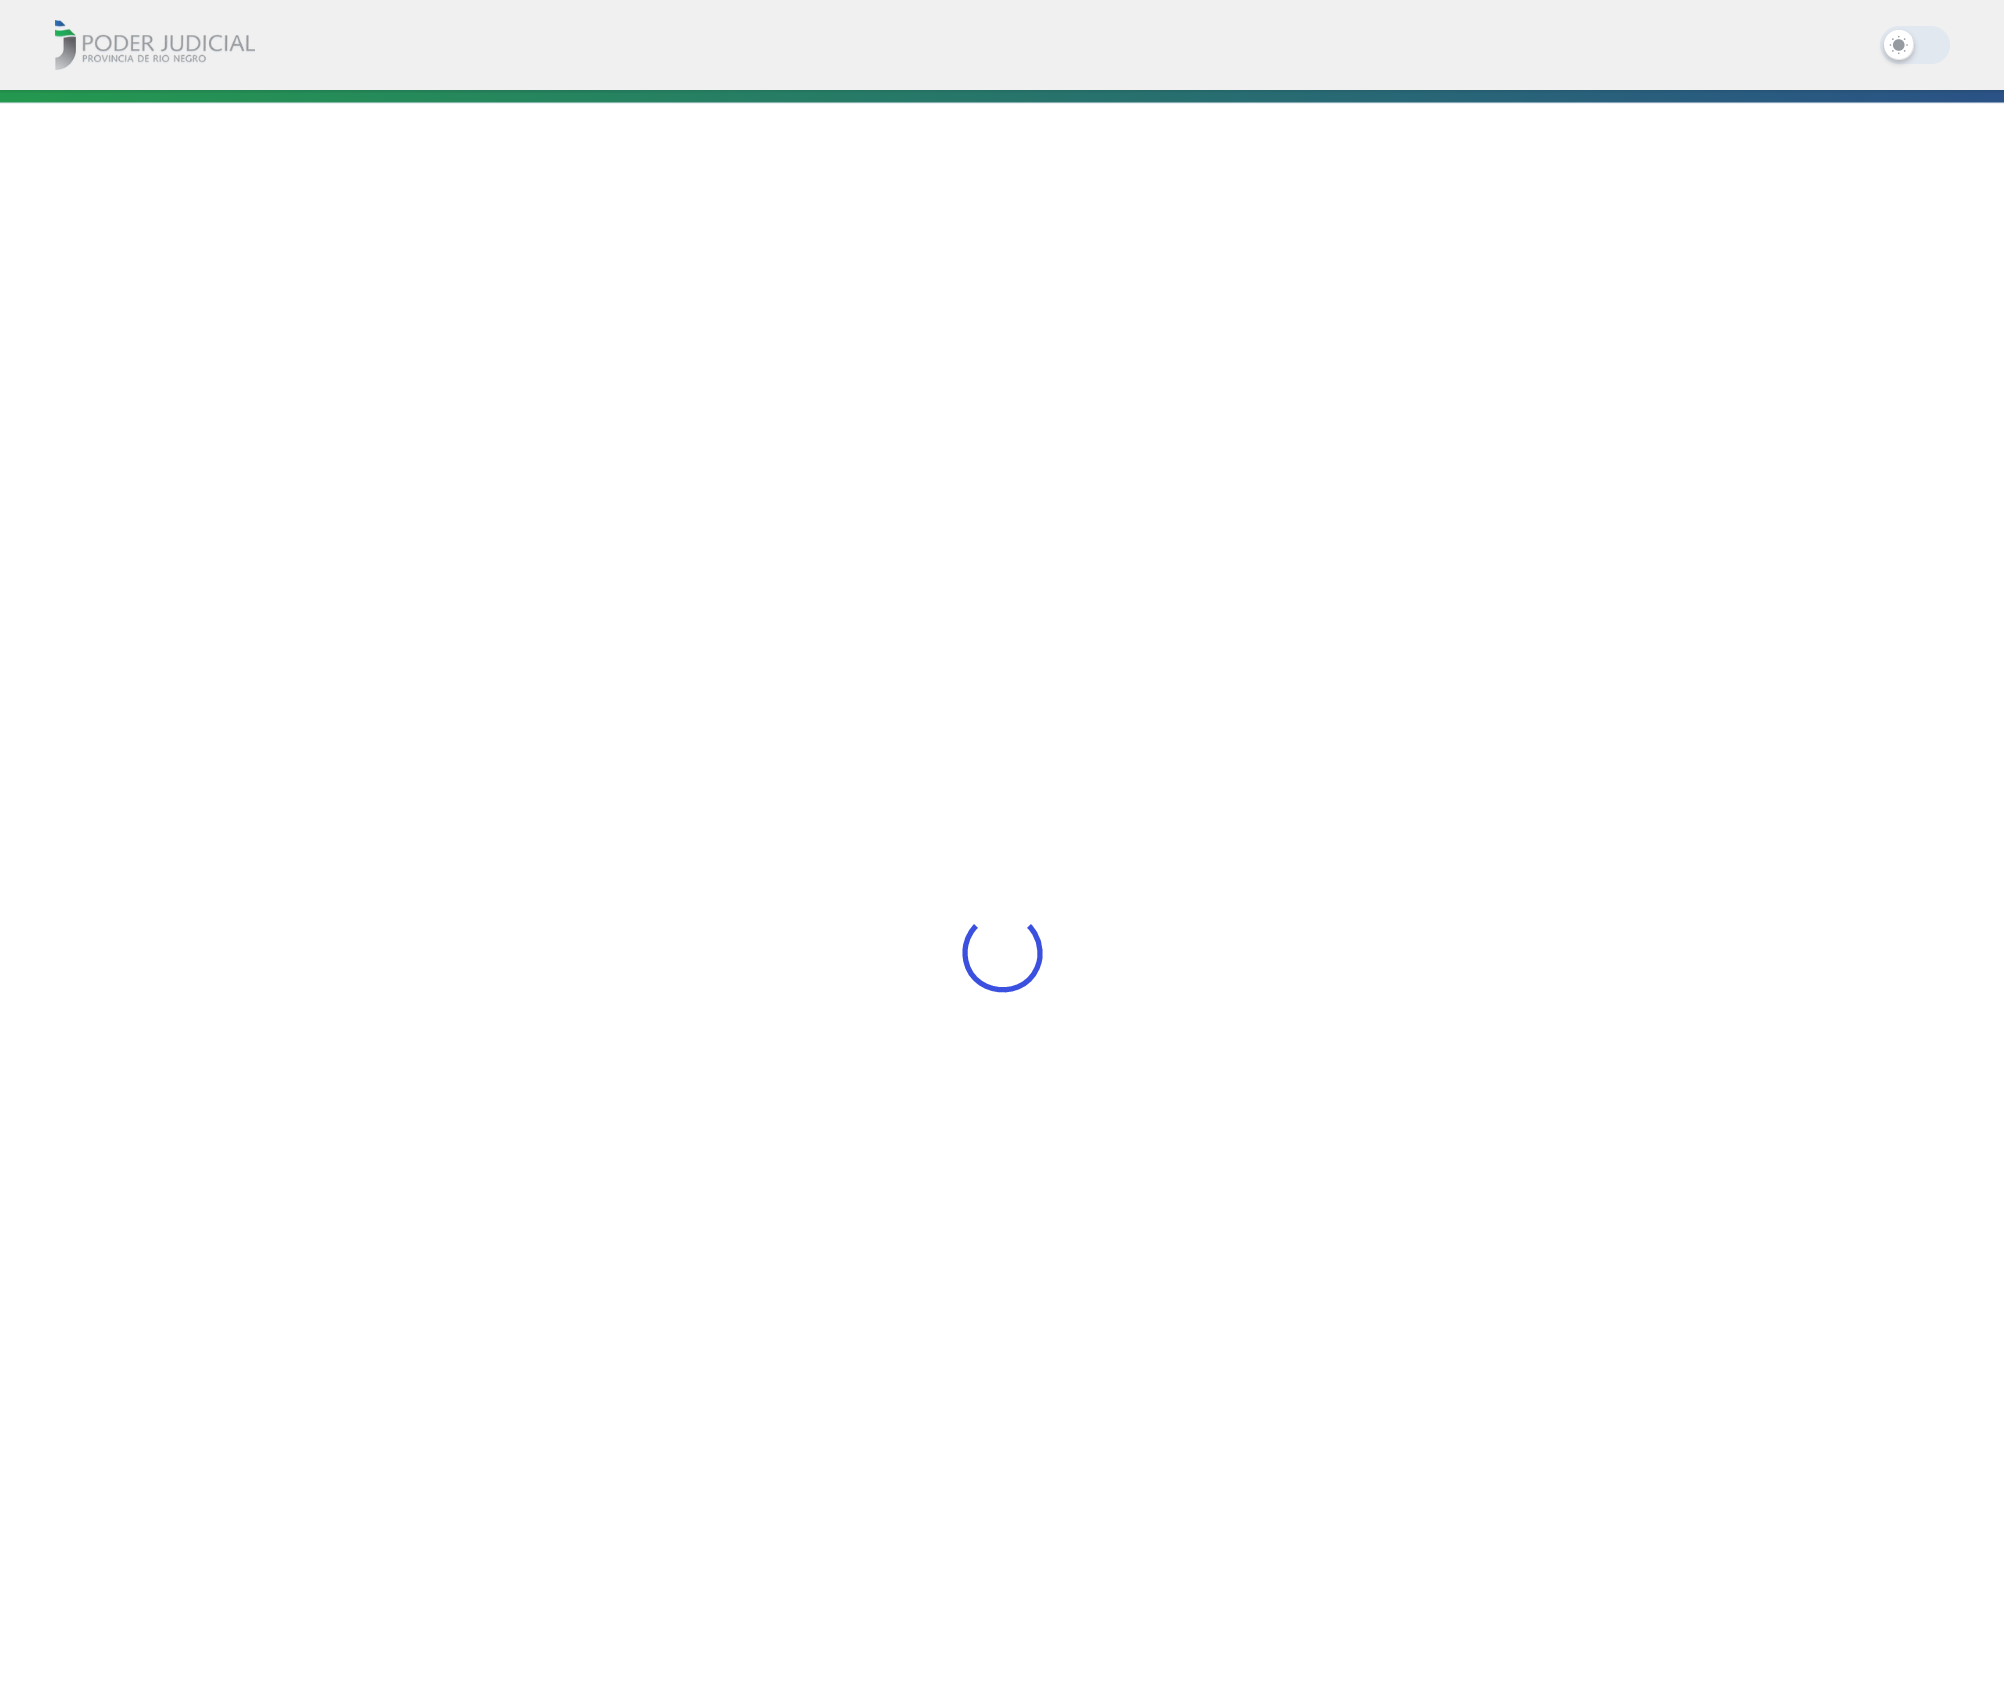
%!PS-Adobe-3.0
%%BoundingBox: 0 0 2004 1699
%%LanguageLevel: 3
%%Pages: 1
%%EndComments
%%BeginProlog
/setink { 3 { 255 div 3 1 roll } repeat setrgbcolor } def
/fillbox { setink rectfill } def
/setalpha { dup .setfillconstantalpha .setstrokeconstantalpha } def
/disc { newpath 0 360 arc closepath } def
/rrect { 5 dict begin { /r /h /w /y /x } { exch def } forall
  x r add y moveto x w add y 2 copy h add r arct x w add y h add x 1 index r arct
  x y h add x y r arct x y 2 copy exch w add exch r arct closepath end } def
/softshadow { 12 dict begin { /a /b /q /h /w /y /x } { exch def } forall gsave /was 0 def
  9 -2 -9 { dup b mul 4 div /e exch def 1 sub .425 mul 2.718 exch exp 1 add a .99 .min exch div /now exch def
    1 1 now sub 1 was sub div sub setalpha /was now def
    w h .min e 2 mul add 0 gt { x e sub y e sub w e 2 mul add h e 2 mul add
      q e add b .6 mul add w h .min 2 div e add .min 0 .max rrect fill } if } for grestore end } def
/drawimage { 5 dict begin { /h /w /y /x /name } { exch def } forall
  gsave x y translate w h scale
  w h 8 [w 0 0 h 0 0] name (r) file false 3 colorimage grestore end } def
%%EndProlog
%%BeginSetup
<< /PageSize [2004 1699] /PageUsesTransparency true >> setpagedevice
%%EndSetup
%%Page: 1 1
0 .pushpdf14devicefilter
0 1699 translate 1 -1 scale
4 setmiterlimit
0 0 2004 1699 255 255 255 fillbox
0 0 2004 90 240 240 241 fillbox
(assets/img1.rgb) 0 90 2004 14 drawimage
gsave
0 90 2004 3 rectclip
0 0 0 setink
0 1 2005 90 0 2.5 0.12 softshadow
grestore
(assets/img2.rgb) 55 20 200 50 drawimage
226 232 240 setink
1880 26 70 38 19 rrect fill
0 0 0 setink
1884 33 30 30 15 2.5 0.2 softshadow
255 255 255 setink
1899 45 15 disc fill
0.1 setalpha
0 0 0 setink
1884 44.5 moveto 1884 48.5 1885.5 52.5 1888.5 55.5 curveto 1901 68 1920.5 52 1912 37.5 curveto 1915.5 46.5 1911.5 59 1899 59 curveto 1889 59 1884 52 1884 44.5 curveto closepath fill
1 setalpha
(assets/img3.rgb) 1889 35 19 20 drawimage
60 80 224 setink
5 setlinewidth
1029 926 moveto 1038 935 1041.5 947.5 1039.5 960 curveto 1030.5 1004 965 997.5 965 952.5 curveto 965 942.5 969 933 976 926 curveto stroke
.poppdf14devicefilter showpage
%%EOF
